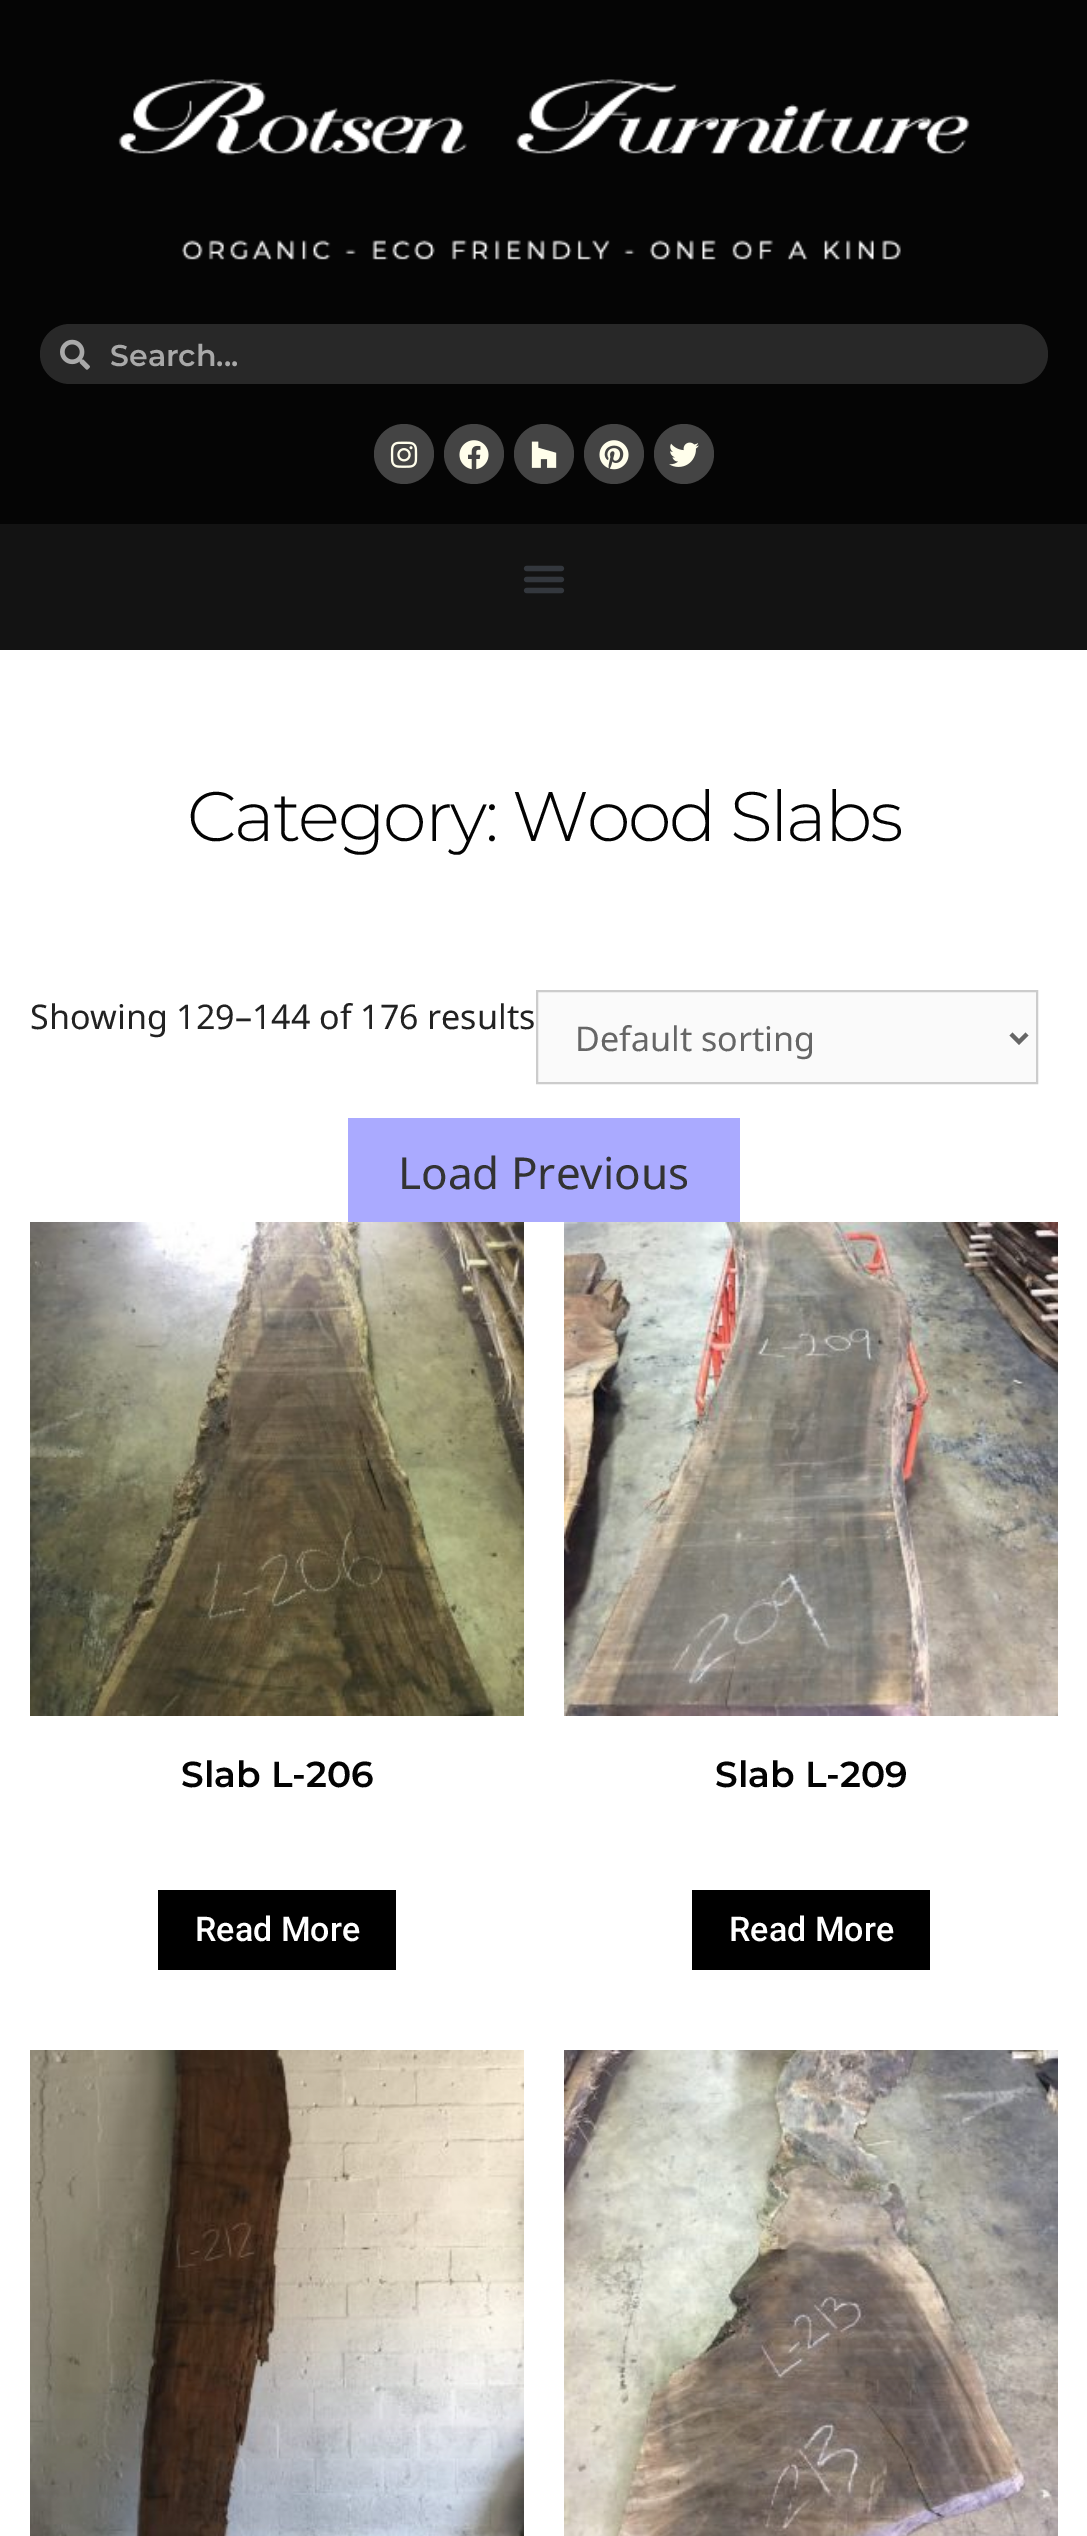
%!PS-Adobe-3.0
%%BoundingBox: 0 0 1087 2536
%%LanguageLevel: 3
%%Pages: 1
%%EndComments
%%BeginProlog
/setink { 3 { 255 div 3 1 roll } repeat setrgbcolor } def
/usefont { [ exch dup neg 0 0 3 -1 roll 0 0 ] selectfont } def
/drawtext { setink usefont moveto show } def
/fillbox { setink rectfill } def
/disc { newpath 0 360 arc closepath } def
/rrect { 5 dict begin { /r /h /w /y /x } { exch def } forall
  x r add y moveto x w add y 2 copy h add r arct x w add y h add x 1 index r arct
  x y h add x y r arct x y 2 copy exch w add exch r arct closepath end } def
/drawimage { 5 dict begin { /h /w /y /x /name } { exch def } forall
  gsave x y translate w h scale
  w h 8 [w 0 0 h 0 0] name (r) file false 3 colorimage grestore end } def
%%EndProlog
%%BeginSetup
<< /PageSize [1087 2536] >> setpagedevice
%%EndSetup
%%Page: 1 1
0 2536 translate 1 -1 scale
4 setmiterlimit
0 0 1087 2536 255 255 255 fillbox
0 0 1087 524 5 5 5 fillbox
(assets/img1.rgb) 118 79 852 181 drawimage
40 40 40 setink
40 324 1008 60 30 rrect fill
(assets/img2.rgb) 60 339 30 31 drawimage
(Search...) 110 366 /Montserrat-SemiBold 30 169 169 169 drawtext
68 68 68 setink
404 454 30 disc fill
(assets/img3.rgb) 390 441 28 27 drawimage
474 454 30 disc fill
(assets/img4.rgb) 459 440 30 30 drawimage
544 454 30 disc fill
(assets/img5.rgb) 531 441 26 27 drawimage
614 454 30 disc fill
(assets/img6.rgb) 599 440 30 30 drawimage
684 454 30 disc fill
(assets/img7.rgb) 669 442 30 25 drawimage
0 524 1087 126 19 19 19 fillbox
(assets/img8.rgb) 523 565 42 29 drawimage
/Montserrat-Light 70 usefont
3 3 3 setink
187 841 moveto -2.25 0 (Category: Wood Slabs) ashow
(Showing 129–144 of 176 results) 30 1029 /NotoSans-Regular 34 34 34 34 drawtext
250 250 250 setink
537 991 moveto 1037 991 lineto 1037 1083 lineto 537 1083 lineto closepath gsave fill grestore
204 204 204 setink
2 setlinewidth
stroke
102 102 102 setink
4 setlinewidth
1011 1034 moveto 1019 1042 lineto 1027 1034 lineto stroke
(Default sorting) 575 1051 /NotoSans-Regular 34 102 102 102 drawtext
348 1118 392 104 170 170 255 fillbox
(Load Previous) 398 1189 /NotoSans-Regular 44 51 51 51 drawtext
(assets/img9.rgb) 30 1222 494 494 drawimage
(Slab L-206) 181 1787 /Montserrat-SemiBold 36 3 3 3 drawtext
158 1890 238 80 0 0 0 fillbox
(Read More) 195 1941 /Roboto-Medium 34 255 255 255 drawtext
(assets/img10.rgb) 564 1222 494 494 drawimage
(Slab L-209) 715 1787 /Montserrat-SemiBold 36 3 3 3 drawtext
692 1890 238 80 0 0 0 fillbox
(Read More) 729 1941 /Roboto-Medium 34 255 255 255 drawtext
(assets/img11.rgb) 30 2050 494 486 drawimage
(assets/img12.rgb) 564 2050 494 486 drawimage
showpage
%%EOF
